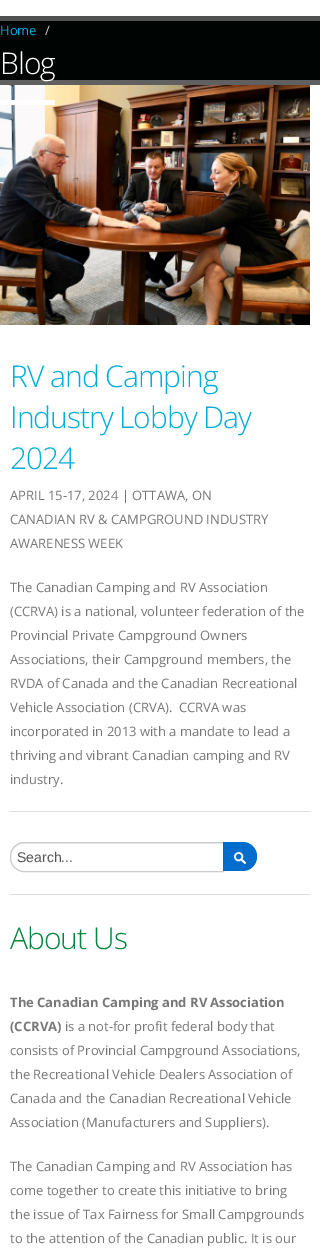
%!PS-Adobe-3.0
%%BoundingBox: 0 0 320 1260
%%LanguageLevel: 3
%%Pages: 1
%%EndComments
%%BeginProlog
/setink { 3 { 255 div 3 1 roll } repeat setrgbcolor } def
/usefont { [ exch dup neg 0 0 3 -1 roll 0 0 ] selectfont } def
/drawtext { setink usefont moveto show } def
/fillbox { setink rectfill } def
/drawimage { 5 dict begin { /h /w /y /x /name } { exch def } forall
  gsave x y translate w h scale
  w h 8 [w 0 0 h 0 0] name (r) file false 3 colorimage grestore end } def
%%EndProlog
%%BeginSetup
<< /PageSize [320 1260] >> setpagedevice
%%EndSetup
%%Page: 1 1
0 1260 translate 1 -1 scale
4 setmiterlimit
0 0 320 1260 255 255 255 fillbox
0 21 320 59 0 5 4 fillbox
0 16 320 5 82 82 82 fillbox
0 80 320 5 96 96 96 fillbox
(Home) 0 35 /OpenSans-Regular 13 0 174 219 drawtext
(/) 45 35 /OpenSans-Regular 13 204 204 204 drawtext
(assets/img1.rgb) 0 85 310 240 drawimage
0 100 55 5 255 255 255 fillbox
/OpenSans-Light 30 usefont
0 74 moveto -1 0 (Blog) ashow
10 811 300 1 221 221 221 fillbox
0 174 219 setink
10 387 moveto -1 0 (RV and Camping) ashow
10 428 moveto -1 0 (Industry Lobby Day) ashow
10 469 moveto -1 0 (2024) ashow
(APRIL 15-17, 2024 | OTTAWA, ON) 10 500 /OpenSans-Regular 13 119 119 119 drawtext
(CANADIAN RV & CAMPGROUND INDUSTRY) 10 524 /OpenSans-Regular 13 119 119 119 drawtext
(AWARENESS WEEK) 10 548 /OpenSans-Regular 13 119 119 119 drawtext
(The Canadian Camping and RV Association) 10 592 /OpenSans-Regular 13 119 119 119 drawtext
(\(CCRVA\) is a national, volunteer federation of the) 10 616 /OpenSans-Regular 13 119 119 119 drawtext
(Provincial Private Campground Owners) 10 640 /OpenSans-Regular 13 119 119 119 drawtext
(Associations, their Campground members, the) 10 664 /OpenSans-Regular 13 119 119 119 drawtext
(RVDA of Canada and the Canadian Recreational) 10 688 /OpenSans-Regular 13 119 119 119 drawtext
(Vehicle Association \(CRVA\).  CCRVA was) 10 712 /OpenSans-Regular 13 119 119 119 drawtext
(incorporated in 2013 with a mandate to lead a) 10 736 /OpenSans-Regular 13 119 119 119 drawtext
(thriving and vibrant Canadian camping and RV) 10 760 /OpenSans-Regular 13 119 119 119 drawtext
(industry.) 10 784 /OpenSans-Regular 13 119 119 119 drawtext
236 236 236 setink
24 844 moveto 223 844 lineto 223 843 lineto 24 843 lineto 17 843 11 848 11 855 curveto 12 849 17 844 24 844 curveto closepath fill
204 204 204 setink
24 842.5 moveto 223.5 842.5 lineto 223.5 871.5 lineto 24 871.5 lineto 16.5 871.5 10.5 865.5 10.5 858 curveto 10.5 856 lineto 10.5 848.5 16.5 842.5 24 842.5 curveto closepath stroke
(Search...) 17 862 /LiberationSans-Regular 14 85 85 85 drawtext
0 109 204 setink
223 842 moveto 243 842 lineto 250.5 842 257 848.5 257 856 curveto 257 857 lineto 257 864.5 250.5 871 243 871 curveto 223 871 lineto closepath fill
(assets/img2.rgb) 234 852 12 12 drawimage
10 894 300 1 222 222 222 fillbox
/OpenSans-Light 30 usefont
0 133 62 setink
10 949 moveto -1 0 (About Us) ashow
(The Canadian Camping and RV Association) 10 1007 /OpenSans-Bold 13 119 119 119 drawtext
(\(CCRVA\)) 10 1031 /OpenSans-Bold 13 119 119 119 drawtext
(is a not-for profit federal body that) 65 1031 /OpenSans-Regular 13 119 119 119 drawtext
(consists of Provincial Campground Associations,) 10 1055 /OpenSans-Regular 13 119 119 119 drawtext
(the Recreational Vehicle Dealers Association of) 10 1079 /OpenSans-Regular 13 119 119 119 drawtext
(Canada and the Canadian Recreational Vehicle) 10 1103 /OpenSans-Regular 13 119 119 119 drawtext
(Association \(Manufacturers and Suppliers\).) 10 1127 /OpenSans-Regular 13 119 119 119 drawtext
(The Canadian Camping and RV Association has) 10 1171 /OpenSans-Regular 13 119 119 119 drawtext
(come together to create this initiative to bring) 10 1195 /OpenSans-Regular 13 119 119 119 drawtext
(the issue of Tax Fairness for Small Campgrounds) 10 1219 /OpenSans-Regular 13 119 119 119 drawtext
(to the attention of the Canadian public. It is our) 10 1243 /OpenSans-Regular 13 119 119 119 drawtext
showpage
%%EOF
